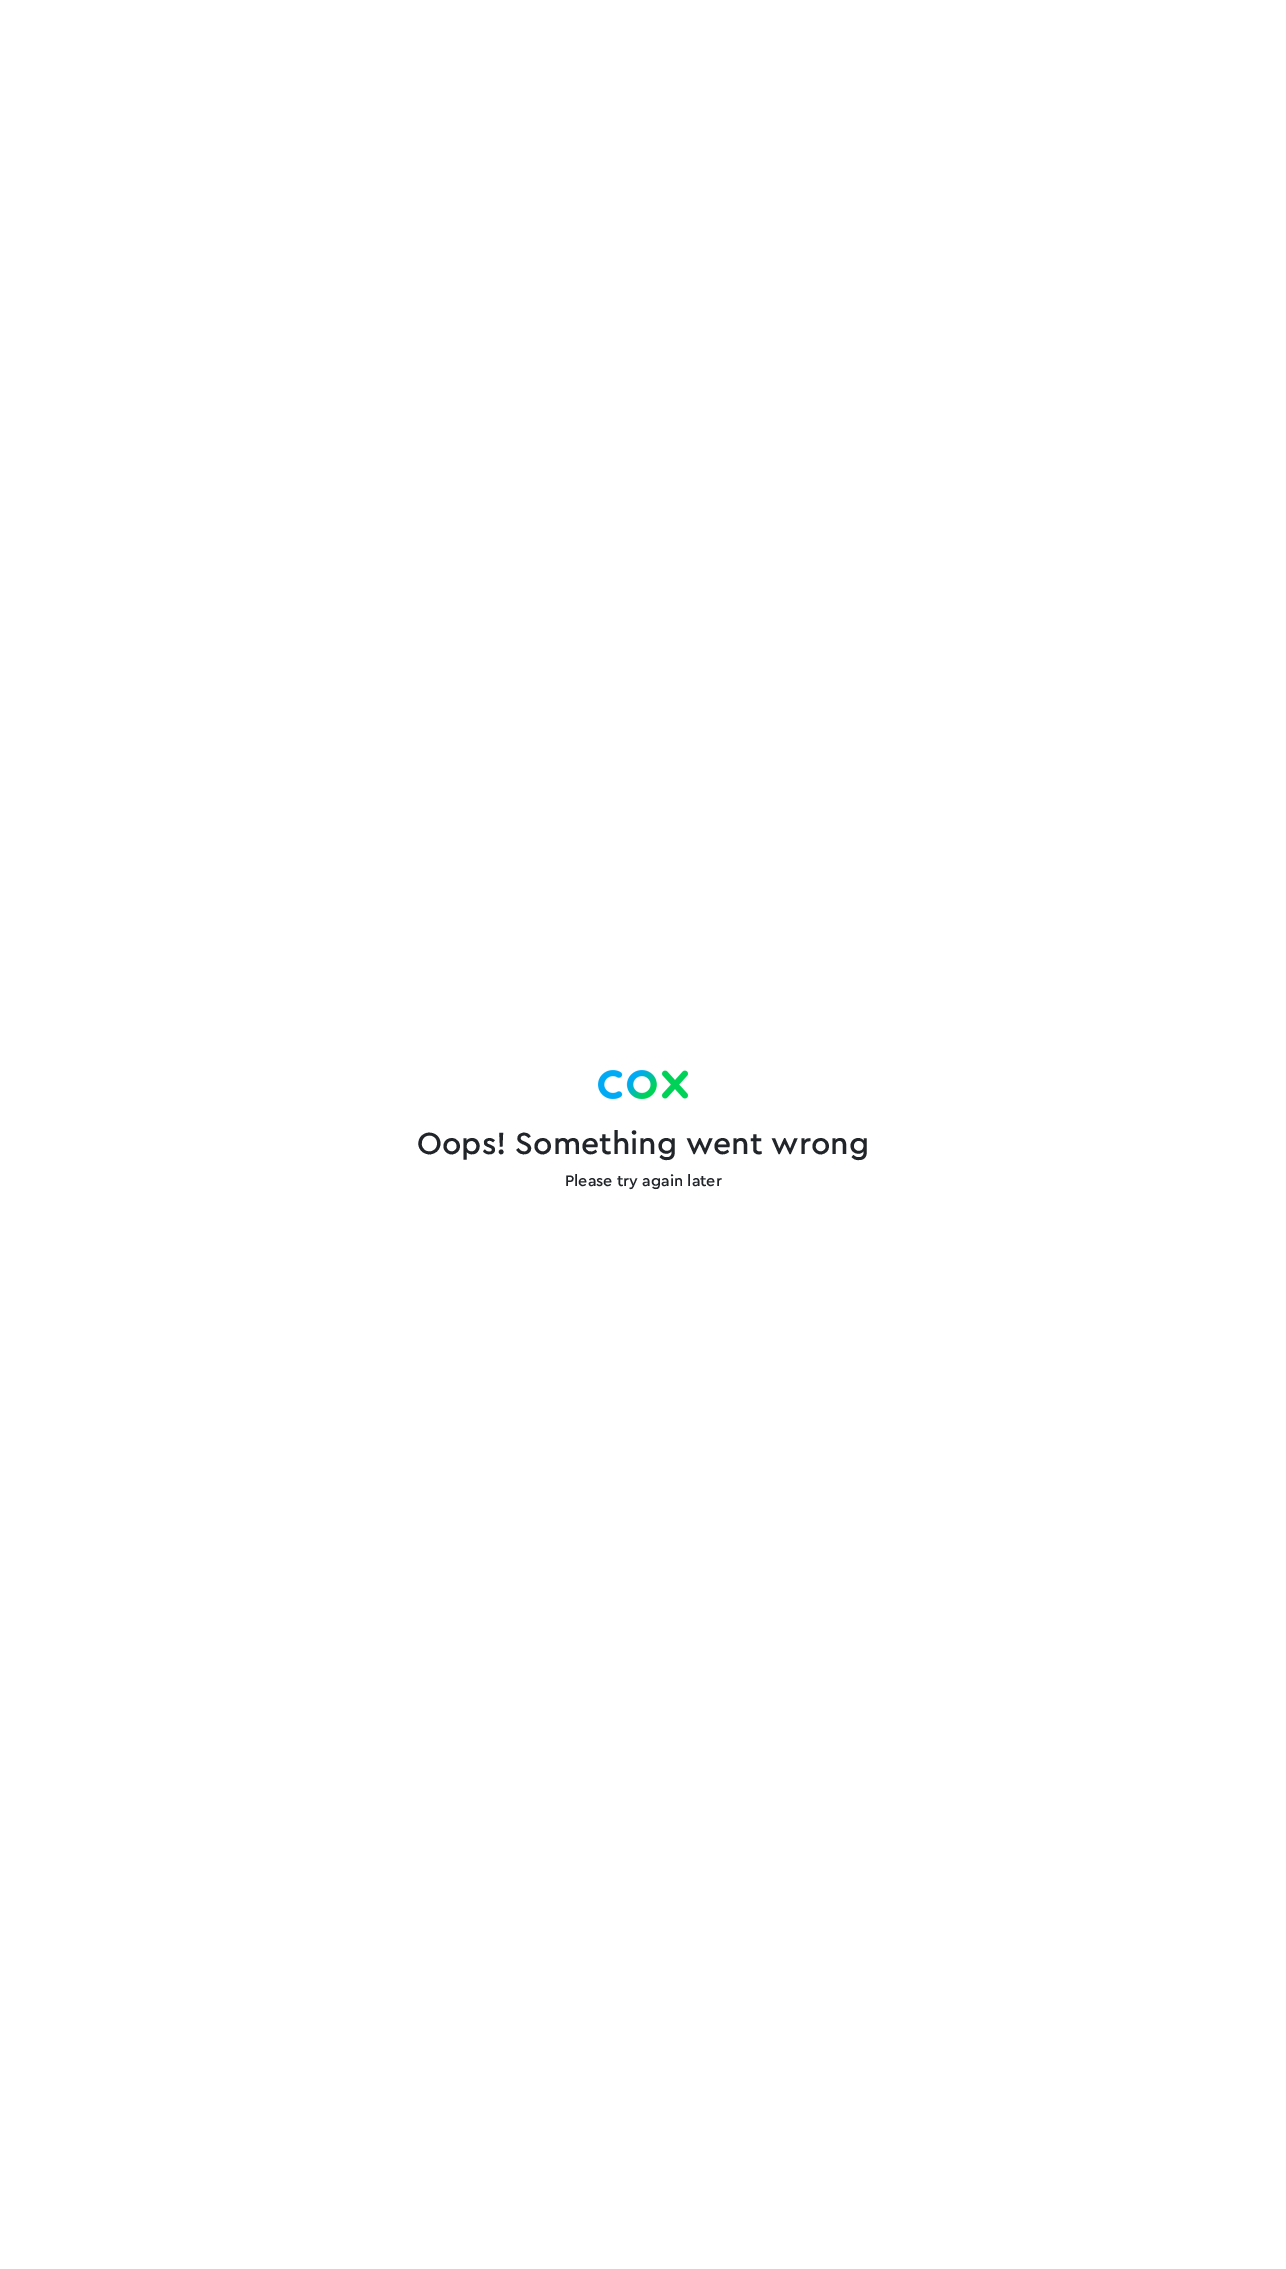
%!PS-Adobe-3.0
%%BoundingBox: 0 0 1286 2269
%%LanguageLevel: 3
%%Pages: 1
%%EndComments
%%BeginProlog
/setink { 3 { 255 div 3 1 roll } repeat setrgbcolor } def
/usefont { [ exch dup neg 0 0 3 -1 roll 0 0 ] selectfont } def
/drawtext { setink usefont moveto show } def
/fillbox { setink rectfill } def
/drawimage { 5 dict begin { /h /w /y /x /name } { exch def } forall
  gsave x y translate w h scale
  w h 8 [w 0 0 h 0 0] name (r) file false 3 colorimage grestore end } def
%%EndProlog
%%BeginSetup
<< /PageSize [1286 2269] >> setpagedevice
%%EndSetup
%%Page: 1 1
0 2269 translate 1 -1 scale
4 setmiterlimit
0 0 1286 2269 255 255 255 fillbox
(assets/img1.rgb) 598 1070 90 29 drawimage
(Oops! Something went wrong) 417 1154 /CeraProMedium-Medium 32 33 37 41 drawtext
(Please try again later) 565 1186 /CeraProMedium-Medium 16 33 37 41 drawtext
showpage
%%EOF
